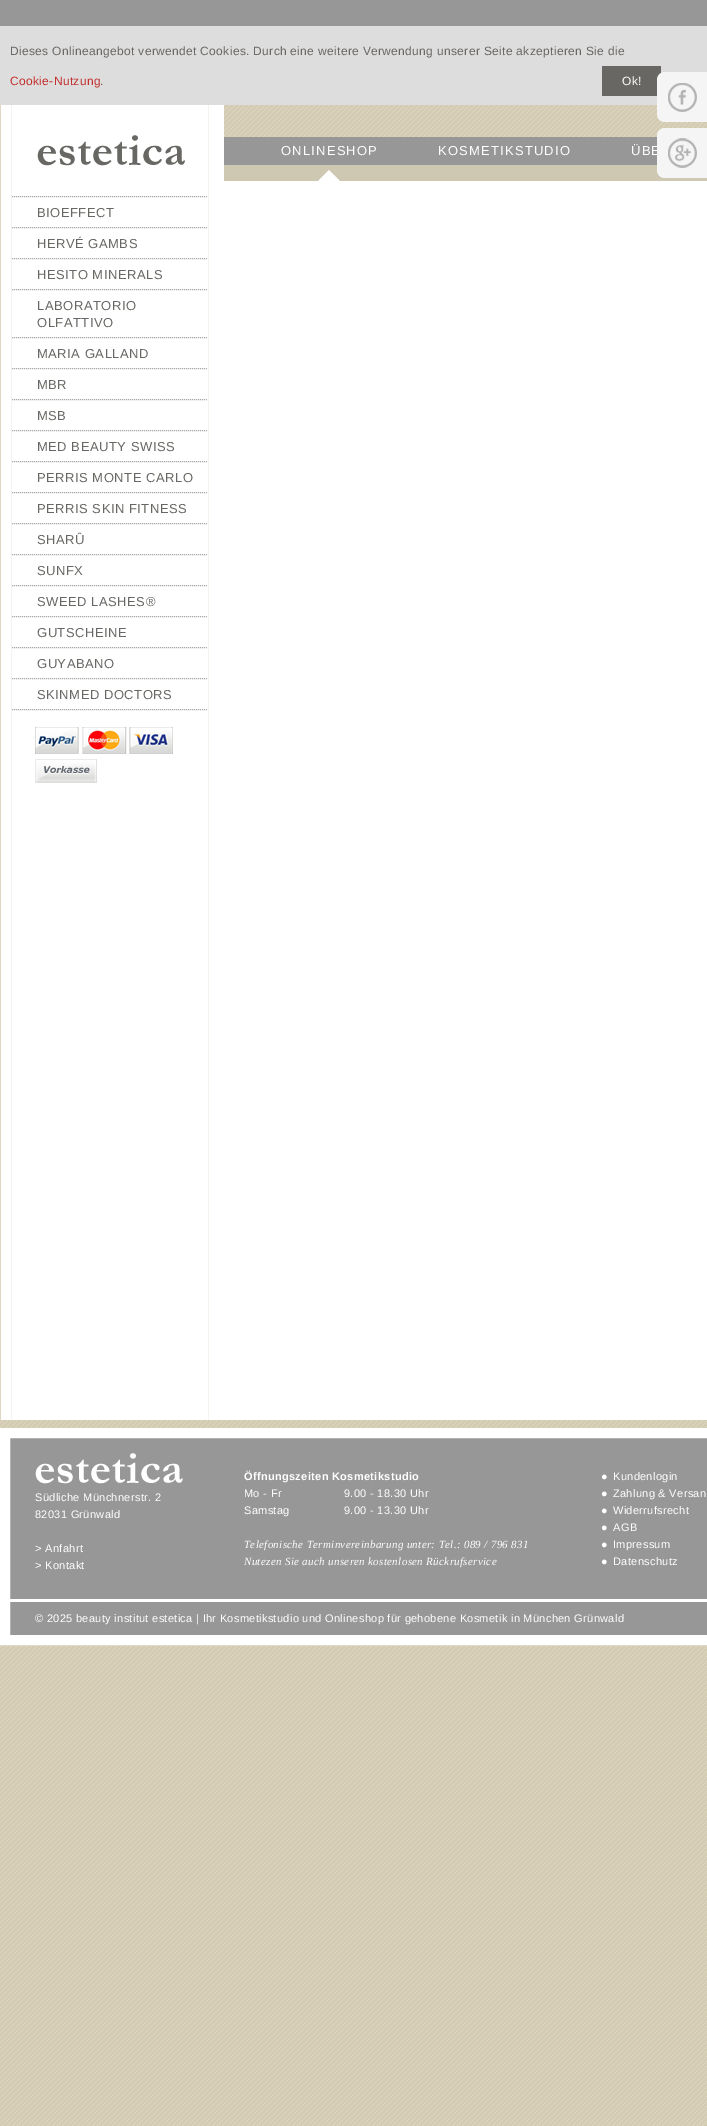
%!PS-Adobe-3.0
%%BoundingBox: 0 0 707 2126
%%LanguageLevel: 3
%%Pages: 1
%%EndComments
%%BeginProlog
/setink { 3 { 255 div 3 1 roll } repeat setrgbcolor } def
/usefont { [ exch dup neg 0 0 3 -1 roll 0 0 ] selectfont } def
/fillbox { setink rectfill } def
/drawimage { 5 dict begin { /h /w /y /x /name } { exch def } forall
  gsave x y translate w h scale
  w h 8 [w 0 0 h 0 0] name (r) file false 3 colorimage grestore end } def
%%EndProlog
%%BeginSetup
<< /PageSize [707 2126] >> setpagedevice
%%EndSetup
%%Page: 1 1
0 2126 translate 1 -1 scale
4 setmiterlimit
0 0 707 2126 255 255 255 fillbox
(assets/img1.rgb) 0 1420 707 706 drawimage
0 0 707 26 151 151 151 fillbox
0 26 707 79 222 221 221 fillbox
/LiberationSans-Regular 12 usefont
104 103 99 setink
10 55 moveto 0.33 0 (Dieses Onlineangebot verwendet Cookies. Durch eine weitere Verwendung unserer Seite akzeptieren Sie die) ashow
194 48 46 setink
10 85 moveto 0.33 0 (Cookie-Nutzung) ashow
104 103 99 setink
100 85 moveto 0.33 0 (.) ashow
602 66 59 30 104 103 99 fillbox
255 255 255 setink
622 85 moveto 0.33 0 (Ok!) ashow
(assets/img4.rgb) 0 105 707 1315 drawimage
(assets/img5.rgb) 224 105 483 76 drawimage
245 245 245 setink
665 72 moveto 707 72 lineto 707 122 lineto 665 122 lineto 660.5 122 657 118.5 657 114 curveto 657 80 lineto 657 75.5 660.5 72 665 72 curveto closepath fill
(assets/img2.rgb) 668 83 29 29 drawimage
/LiberationSans-Regular 13 usefont
255 255 255 setink
631 155 moveto 1.2 0 (ÜBE) ashow
245 245 245 setink
665 128 moveto 707 128 lineto 707 178 lineto 665 178 lineto 660.5 178 657 174.5 657 170 curveto 657 136 lineto 657 131.5 660.5 128 665 128 curveto closepath fill
(assets/img3.rgb) 668 138 29 30 drawimage
255 255 255 setink
281 155 moveto 1.2 0 (ONLINESHOP) ashow
340 181 moveto 318 181 lineto 329 170 lineto closepath fill
438 155 moveto 1.2 0 (KOSMETIKSTUDIO) ashow
(assets/img6.rgb) 37 135 148 31 drawimage
170 170 169 setink
[1 1] 0 setdash
12 196.5 moveto 208 196.5 lineto stroke
12 227.5 moveto 208 227.5 lineto stroke
104 103 99 setink
37 217 moveto 0.5 0 (BIOEFFECT) ashow
170 170 169 setink
12 258.5 moveto 208 258.5 lineto stroke
104 103 99 setink
37 248 moveto 0.5 0 (HERVÉ GAMBS) ashow
170 170 169 setink
12 289.5 moveto 208 289.5 lineto stroke
104 103 99 setink
37 279 moveto 0.5 0 (HESITO MINERALS) ashow
170 170 169 setink
12 337.5 moveto 208 337.5 lineto stroke
104 103 99 setink
37 310 moveto 0.5 0 (LABORATORIO) ashow
37 327 moveto 0.5 0 (OLFATTIVO) ashow
170 170 169 setink
12 368.5 moveto 208 368.5 lineto stroke
104 103 99 setink
37 358 moveto 0.5 0 (MARIA GALLAND) ashow
170 170 169 setink
12 399.5 moveto 208 399.5 lineto stroke
104 103 99 setink
37 389 moveto 0.5 0 (MBR) ashow
170 170 169 setink
12 430.5 moveto 208 430.5 lineto stroke
104 103 99 setink
37 420 moveto 0.5 0 (MSB) ashow
170 170 169 setink
12 461.5 moveto 208 461.5 lineto stroke
104 103 99 setink
37 451 moveto 0.5 0 (MED BEAUTY SWISS) ashow
170 170 169 setink
12 492.5 moveto 208 492.5 lineto stroke
104 103 99 setink
37 482 moveto 0.5 0 (PERRIS MONTE CARLO) ashow
170 170 169 setink
12 523.5 moveto 208 523.5 lineto stroke
104 103 99 setink
37 513 moveto 0.5 0 (PERRIS SKIN FITNESS) ashow
170 170 169 setink
12 554.5 moveto 208 554.5 lineto stroke
104 103 99 setink
37 544 moveto 0.5 0 (SHARÛ) ashow
170 170 169 setink
12 585.5 moveto 208 585.5 lineto stroke
104 103 99 setink
37 575 moveto 0.5 0 (SUNFX) ashow
170 170 169 setink
12 616.5 moveto 208 616.5 lineto stroke
104 103 99 setink
37 606 moveto 0.5 0 (SWEED LASHES®) ashow
170 170 169 setink
12 647.5 moveto 208 647.5 lineto stroke
104 103 99 setink
37 637 moveto 0.5 0 (GUTSCHEINE) ashow
170 170 169 setink
12 678.5 moveto 208 678.5 lineto stroke
104 103 99 setink
37 668 moveto 0.5 0 (GUYABANO) ashow
170 170 169 setink
12 709.5 moveto 208 709.5 lineto stroke
104 103 99 setink
37 699 moveto 0.5 0 (SKINMED DOCTORS) ashow
(assets/img7.rgb) 35 727 138 56 drawimage
151 151 151 setink
5 1433 moveto 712 1433 lineto 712 1640 lineto 5 1640 lineto closepath gsave fill grestore
255 255 255 setink
10 setlinewidth
[] 0 setdash
stroke
(assets/img8.rgb) 35 1453 148 31 drawimage
/LiberationSans-Regular 11 usefont
35 1501 moveto 0.33 0 (Südliche Münchnerstr. 2) ashow
35 1518 moveto 0.33 0 (82031 Grünwald) ashow
35 1552 moveto 0.33 0 (> Anfahrt) ashow
35 1569 moveto 0.33 0 (> Kontakt) ashow
/LiberationSans-Bold 11 usefont
244 1480 moveto 0.33 0 (Öffnungszeiten Kosmetikstudio) ashow
/LiberationSans-Regular 11 usefont
244 1497 moveto 0.33 0 (Mo - Fr) ashow
344 1497 moveto 0.33 0 (9.00 - 18.30 Uhr) ashow
244 1514 moveto 0.33 0 (Samstag) ashow
344 1514 moveto 0.33 0 (9.00 - 13.30 Uhr) ashow
/LiberationSerif-Italic 11 usefont
244 1548 moveto 0.33 0 (Telefonische Terminvereinbarung unter: Tel.: 089 / 796 831) ashow
244 1565 moveto 0.33 0 (Nutezen Sie auch unseren kostenlosen Rückrufservice) ashow
/LiberationSans-Regular 11 usefont
601 1480 moveto 0.33 0 (●) ashow
613 1480 moveto 0.33 0 (Kundenlogin) ashow
601 1497 moveto 0.33 0 (●) ashow
613 1497 moveto 0.33 0 (Zahlung & Versan) ashow
601 1514 moveto 0.33 0 (●) ashow
613 1514 moveto 0.33 0 (Widerrufsrecht) ashow
601 1531 moveto 0.33 0 (●) ashow
613 1531 moveto 0.33 0 (AGB) ashow
601 1548 moveto 0.33 0 (●) ashow
613 1548 moveto 0.33 0 (Impressum) ashow
601 1565 moveto 0.33 0 (●) ashow
613 1565 moveto 0.33 0 (Datenschutz) ashow
10 1599 697 3 255 255 255 fillbox
35 1622 moveto 0.33 0 (© 2025 beauty institut estetica | Ihr Kosmetikstudio und Onlineshop für gehobene Kosmetik in München Grünwald) ashow
showpage
%%EOF
